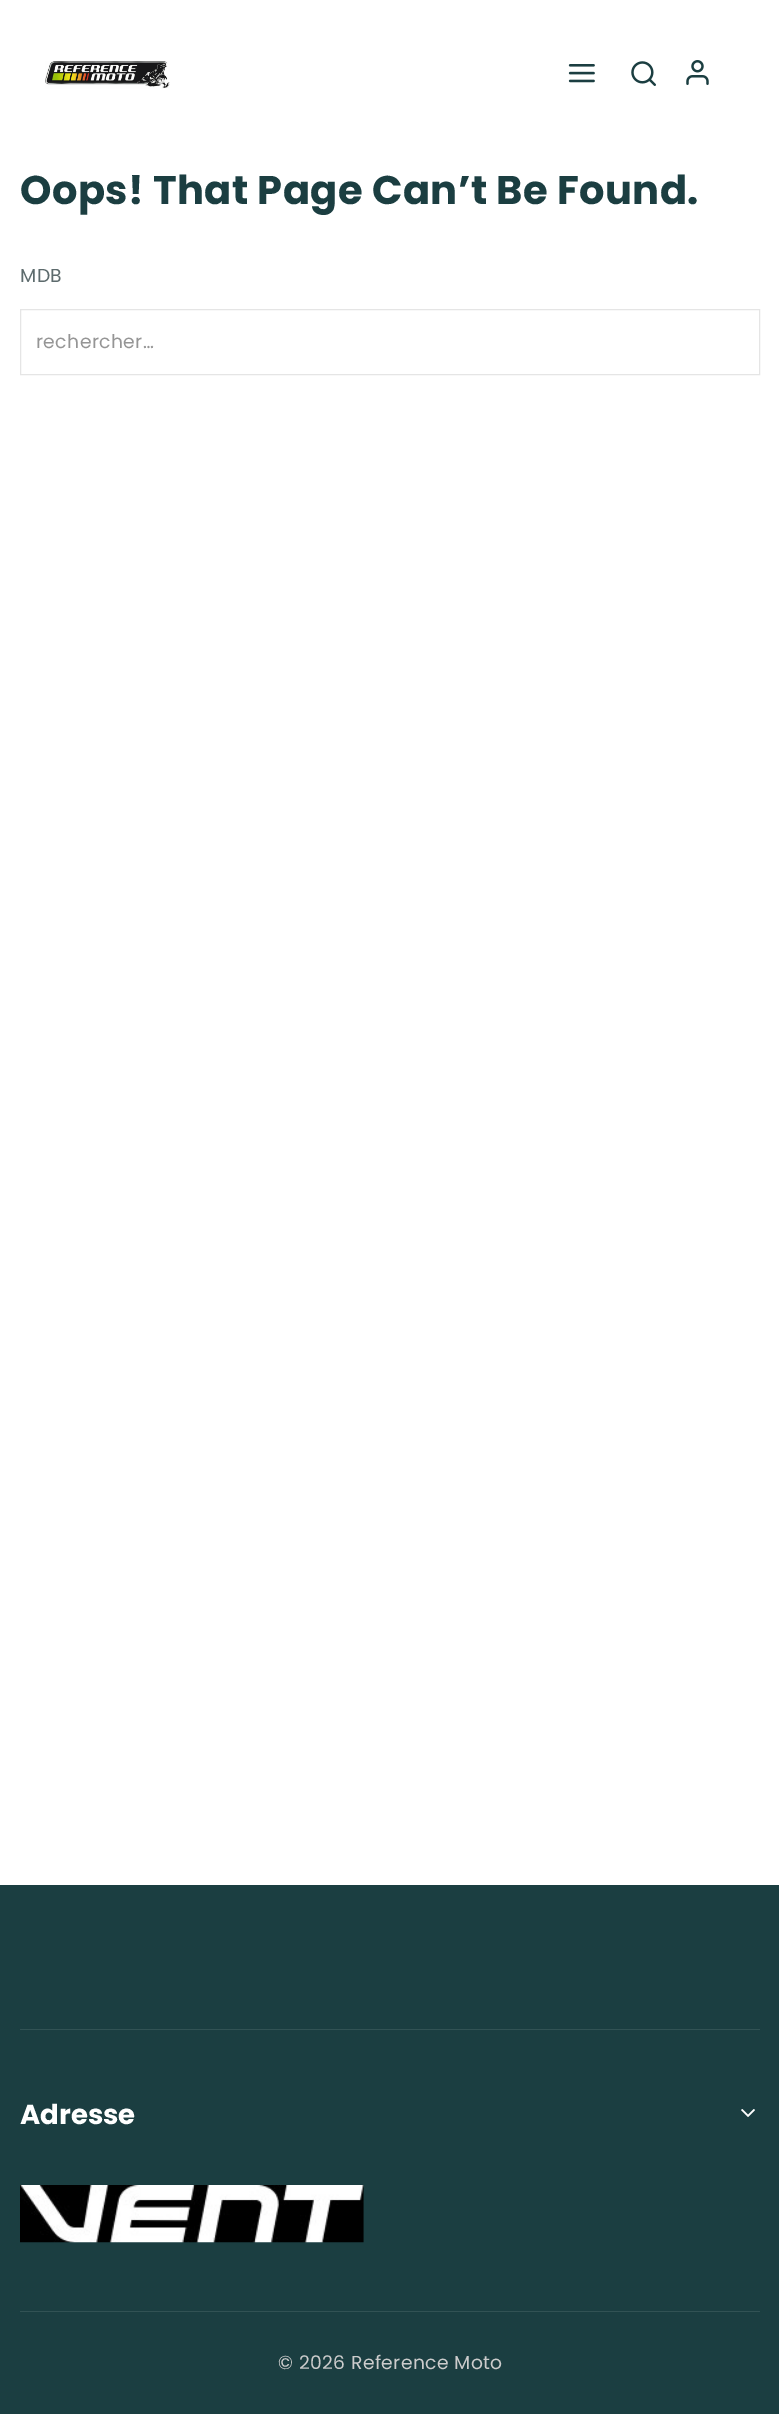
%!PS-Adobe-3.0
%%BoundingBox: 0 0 779 2414
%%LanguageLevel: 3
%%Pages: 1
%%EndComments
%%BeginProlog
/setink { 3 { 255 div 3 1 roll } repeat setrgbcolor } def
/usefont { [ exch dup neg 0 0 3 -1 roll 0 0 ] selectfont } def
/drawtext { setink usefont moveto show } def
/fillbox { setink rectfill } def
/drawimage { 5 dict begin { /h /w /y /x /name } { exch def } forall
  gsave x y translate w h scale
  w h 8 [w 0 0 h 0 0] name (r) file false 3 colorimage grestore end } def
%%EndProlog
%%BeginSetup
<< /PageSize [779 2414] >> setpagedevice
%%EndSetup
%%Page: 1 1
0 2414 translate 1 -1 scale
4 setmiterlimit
0 0 779 2414 255 255 255 fillbox
(assets/img1.rgb) 45 61 125 28 drawimage
(assets/img2.rgb) 568 64 27 19 drawimage
(assets/img3.rgb) 631 61 25 25 drawimage
(assets/img4.rgb) 686 60 23 25 drawimage
/Poppins-Bold 40 usefont
27 62 65 setink
20 204 moveto 0.4 0 (Oops! That Page Can’t Be Found.) ashow
/Poppins-Regular 18.75 usefont
93 107 109 setink
20 282 moveto 0.4 0 (MDB) ashow
229 229 229 setink
20.5 309.5 739 65 rectstroke
149 149 149 setink
36 348 moveto 0.4 0 (rechercher…) ashow
0 1885 779 529 27 62 65 fillbox
20 2029 740 1 50 82 84 fillbox
20 2311 740 1 50 82 84 fillbox
(Adresse) 20 2124 /Poppins-Bold 27.5 255 255 255 drawtext
(assets/img5.rgb) 741 2109 14 8 drawimage
(assets/img6.rgb) 20 2185 344 58 drawimage
/Poppins-Regular 18.75 usefont
204 204 204 setink
278 2369 moveto 0.4 0 (© 2026 Reference Moto) ashow
showpage
%%EOF
